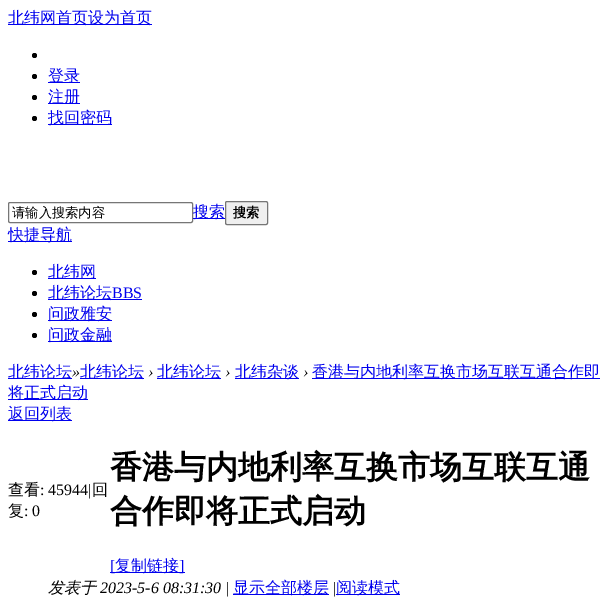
%!PS-Adobe-3.0
%%BoundingBox: 0 0 616 615
%%LanguageLevel: 3
%%Pages: 1
%%EndComments
%%BeginProlog
/setink { 3 { 255 div 3 1 roll } repeat setrgbcolor } def
/usefont { [ exch dup neg 0 0 3 -1 roll 0 0 ] selectfont } def
/drawtext { setink usefont moveto show } def
/fillbox { setink rectfill } def
/disc { newpath 0 360 arc closepath } def
/rrect { 5 dict begin { /r /h /w /y /x } { exch def } forall
  x r add y moveto x w add y 2 copy h add r arct x w add y h add x 1 index r arct
  x y h add x y r arct x y 2 copy exch w add exch r arct closepath end } def
%%EndProlog
%%BeginSetup
<< /PageSize [616 615] >> setpagedevice
%%EndSetup
%%Page: 1 1
0 615 translate 1 -1 scale
4 setmiterlimit
0 0 616 615 255 255 255 fillbox
8 24 144 1 0 0 238 fillbox
(北纬网首页设为首页) 8 23 /WenQuanYiZenHei-Medium 16 0 0 238 drawtext
0 0 0 setink
34.5 55.5 2.5 disc fill
34.5 76.5 2.5 disc fill
48 82 32 1 0 0 238 fillbox
(登录) 48 81 /WenQuanYiZenHei-Medium 16 0 0 238 drawtext
0 0 0 setink
34.5 97.5 2.5 disc fill
48 103 32 1 0 0 238 fillbox
(注册) 48 102 /WenQuanYiZenHei-Medium 16 0 0 238 drawtext
0 0 0 setink
34.5 118.5 2.5 disc fill
48 124 64 1 0 0 238 fillbox
(找回密码) 48 123 /WenQuanYiZenHei-Medium 16 0 0 238 drawtext
118 118 118 setink
8.5 202.5 184 20 1.5 rrect stroke
(请输入搜索内容) 12 217 /WenQuanYiZenHei-Medium 13.25 0 0 0 drawtext
193 218 32 1 0 0 238 fillbox
(搜索) 193 217 /WenQuanYiZenHei-Medium 16 0 0 238 drawtext
239 239 239 setink
225.5 201.5 42 23 1.5 rrect gsave fill grestore
118 118 118 setink
stroke
(搜索) 233 217 /WenQuanYiZenHei-Bold 13.25 0 0 0 drawtext
8 241 64 1 0 0 238 fillbox
(快捷导航) 8 240 /WenQuanYiZenHei-Medium 16 0 0 238 drawtext
0 0 0 setink
34.5 272.5 2.5 disc fill
48 278 48 1 0 0 238 fillbox
(北纬网) 48 277 /WenQuanYiZenHei-Medium 16 0 0 238 drawtext
0 0 0 setink
34.5 293.5 2.5 disc fill
48 299 94 1 0 0 238 fillbox
(北纬论坛) 48 298 /WenQuanYiZenHei-Medium 16 0 0 238 drawtext
(BBS) 112 298 /LiberationSerif-Regular 16 0 0 238 drawtext
0 0 0 setink
34.5 314.5 2.5 disc fill
48 320 64 1 0 0 238 fillbox
(问政雅安) 48 319 /WenQuanYiZenHei-Medium 16 0 0 238 drawtext
0 0 0 setink
34.5 335.5 2.5 disc fill
48 341 64 1 0 0 238 fillbox
(问政金融) 48 340 /WenQuanYiZenHei-Medium 16 0 0 238 drawtext
8 378 64 1 0 0 238 fillbox
(北纬论坛) 8 377 /WenQuanYiZenHei-Medium 16 0 0 238 drawtext
(») 72 377 /LiberationSerif-Italic 16 0 0 0 drawtext
80 378 64 1 0 0 238 fillbox
(北纬论坛) 80 377 /WenQuanYiZenHei-Medium 16 0 0 238 drawtext
(›) 148 377 /LiberationSerif-Italic 16 0 0 0 drawtext
157 378 64 1 0 0 238 fillbox
(北纬论坛) 157 377 /WenQuanYiZenHei-Medium 16 0 0 238 drawtext
(›) 225 377 /LiberationSerif-Italic 16 0 0 0 drawtext
235 378 64 1 0 0 238 fillbox
(北纬杂谈) 235 377 /WenQuanYiZenHei-Medium 16 0 0 238 drawtext
(›) 303 377 /LiberationSerif-Italic 16 0 0 0 drawtext
312 378 288 1 0 0 238 fillbox
(香港与内地利率互换市场互联互通合作即) 312 377 /WenQuanYiZenHei-Medium 16 0 0 238 drawtext
8 399 80 1 0 0 238 fillbox
(将正式启动) 8 398 /WenQuanYiZenHei-Medium 16 0 0 238 drawtext
8 420 64 1 0 0 238 fillbox
(返回列表) 8 419 /WenQuanYiZenHei-Medium 16 0 0 238 drawtext
(查看) 8 495 /WenQuanYiZenHei-Medium 16 0 0 0 drawtext
(: 45944|) 40 495 /LiberationSerif-Regular 16 0 0 0 drawtext
(回) 92 495 /WenQuanYiZenHei-Medium 16 0 0 0 drawtext
(复) 8 516 /WenQuanYiZenHei-Medium 16 0 0 0 drawtext
(: 0) 24 516 /LiberationSerif-Regular 16 0 0 0 drawtext
(香港与内地利率互换市场互联互通) 110 478 /WenQuanYiZenHei-Bold 32 0 0 0 drawtext
(合作即将正式启动) 110 522 /WenQuanYiZenHei-Bold 32 0 0 0 drawtext
110 572 75 1 0 0 238 fillbox
([) 110 571 /LiberationSerif-Regular 16 0 0 238 drawtext
(复制链接) 115 571 /WenQuanYiZenHei-Medium 16 0 0 238 drawtext
(]) 179 571 /LiberationSerif-Regular 16 0 0 238 drawtext
(发表于) 48 593 /WenQuanYiZenHei-MediumItalic 16 0 0 0 drawtext
(2023-5-6 08:31:30) 100 593 /LiberationSerif-Italic 16 0 0 0 drawtext
(|) 226 593 /LiberationSerif-Regular 16 0 0 0 drawtext
233 594 96 1 0 0 238 fillbox
(显示全部楼层) 233 593 /WenQuanYiZenHei-Medium 16 0 0 238 drawtext
(|) 333 593 /LiberationSerif-Regular 16 0 0 0 drawtext
336 594 64 1 0 0 238 fillbox
(阅读模式) 336 593 /WenQuanYiZenHei-Medium 16 0 0 238 drawtext
showpage
%%EOF
